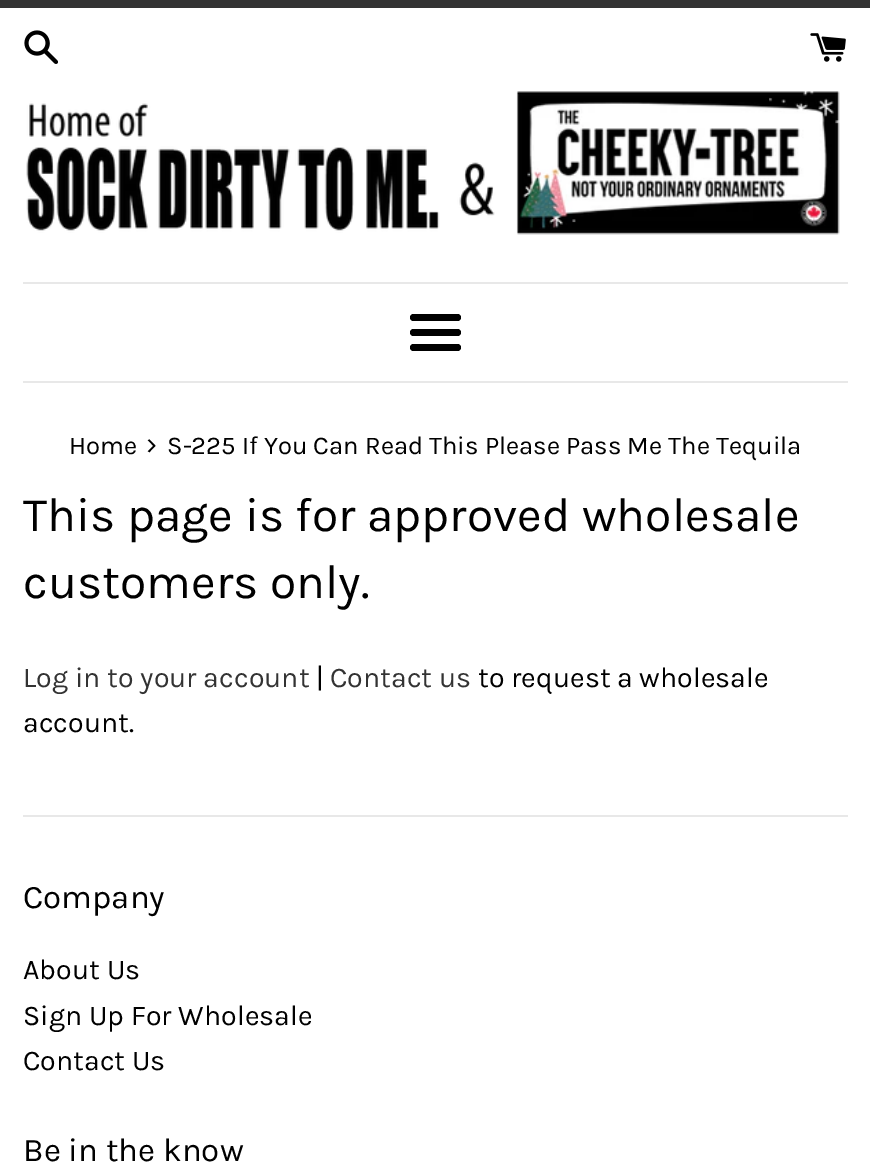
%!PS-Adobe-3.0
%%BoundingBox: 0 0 870 1172
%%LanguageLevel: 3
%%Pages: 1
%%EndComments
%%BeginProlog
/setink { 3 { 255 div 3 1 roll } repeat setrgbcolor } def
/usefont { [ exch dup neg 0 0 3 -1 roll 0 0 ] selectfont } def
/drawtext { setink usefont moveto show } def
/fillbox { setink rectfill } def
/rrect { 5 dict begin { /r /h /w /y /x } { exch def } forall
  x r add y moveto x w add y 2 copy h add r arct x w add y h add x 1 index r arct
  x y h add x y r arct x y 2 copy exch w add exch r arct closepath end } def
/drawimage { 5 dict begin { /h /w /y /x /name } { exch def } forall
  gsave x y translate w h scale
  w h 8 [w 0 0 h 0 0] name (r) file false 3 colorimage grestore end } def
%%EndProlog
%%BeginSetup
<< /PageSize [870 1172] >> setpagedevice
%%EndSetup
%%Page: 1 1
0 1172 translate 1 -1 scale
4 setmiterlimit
0 0 870 1172 255 255 255 fillbox
0 0 870 8 51 51 51 fillbox
(assets/img1.rgb) 24 30 34 34 drawimage
(assets/img2.rgb) 810 33 36 29 drawimage
(assets/img3.rgb) 26 91 814 144 drawimage
23 282 825 2 232 232 232 fillbox
0 0 0 setink
410 314 51 7 3.5 rrect fill
410 329 51 7 3.5 rrect fill
410 344 51 7 3.5 rrect fill
23 381 825 2 232 232 232 fillbox
(Home) 69 454 /Karla-Regular 25.65 0 0 0 drawtext
(›) 146 454 /Karla-Regular 31 0 0 0 drawtext
(S-225 If You Can Read This Please Pass Me The Tequila) 167 454 /Karla-Regular 25.65 0 0 0 drawtext
(This page is for approved wholesale) 23 531 /Karla-Regular 48 0 0 0 drawtext
(customers only.) 23 598 /Karla-Regular 48 0 0 0 drawtext
(Log in to your account) 23 687 /Karla-Regular 28.5 51 51 51 drawtext
(|) 316 687 /Karla-Regular 28.5 0 0 0 drawtext
(Contact us) 330 687 /Karla-Regular 28.5 51 51 51 drawtext
(to request a wholesale) 478 687 /Karla-Regular 28.5 0 0 0 drawtext
(account.) 23 732 /Karla-Regular 28.5 0 0 0 drawtext
23 815 825 2 232 232 232 fillbox
(Company) 23 908 /Karla-Regular 33 0 0 0 drawtext
(About Us) 23 979 /Karla-Regular 28.5 0 0 0 drawtext
(Sign Up For Wholesale) 23 1025 /Karla-Regular 28.5 0 0 0 drawtext
(Contact Us) 23 1070 /Karla-Regular 28.5 0 0 0 drawtext
(Be in the know) 23 1161 /Karla-Regular 33 0 0 0 drawtext
showpage
%%EOF
